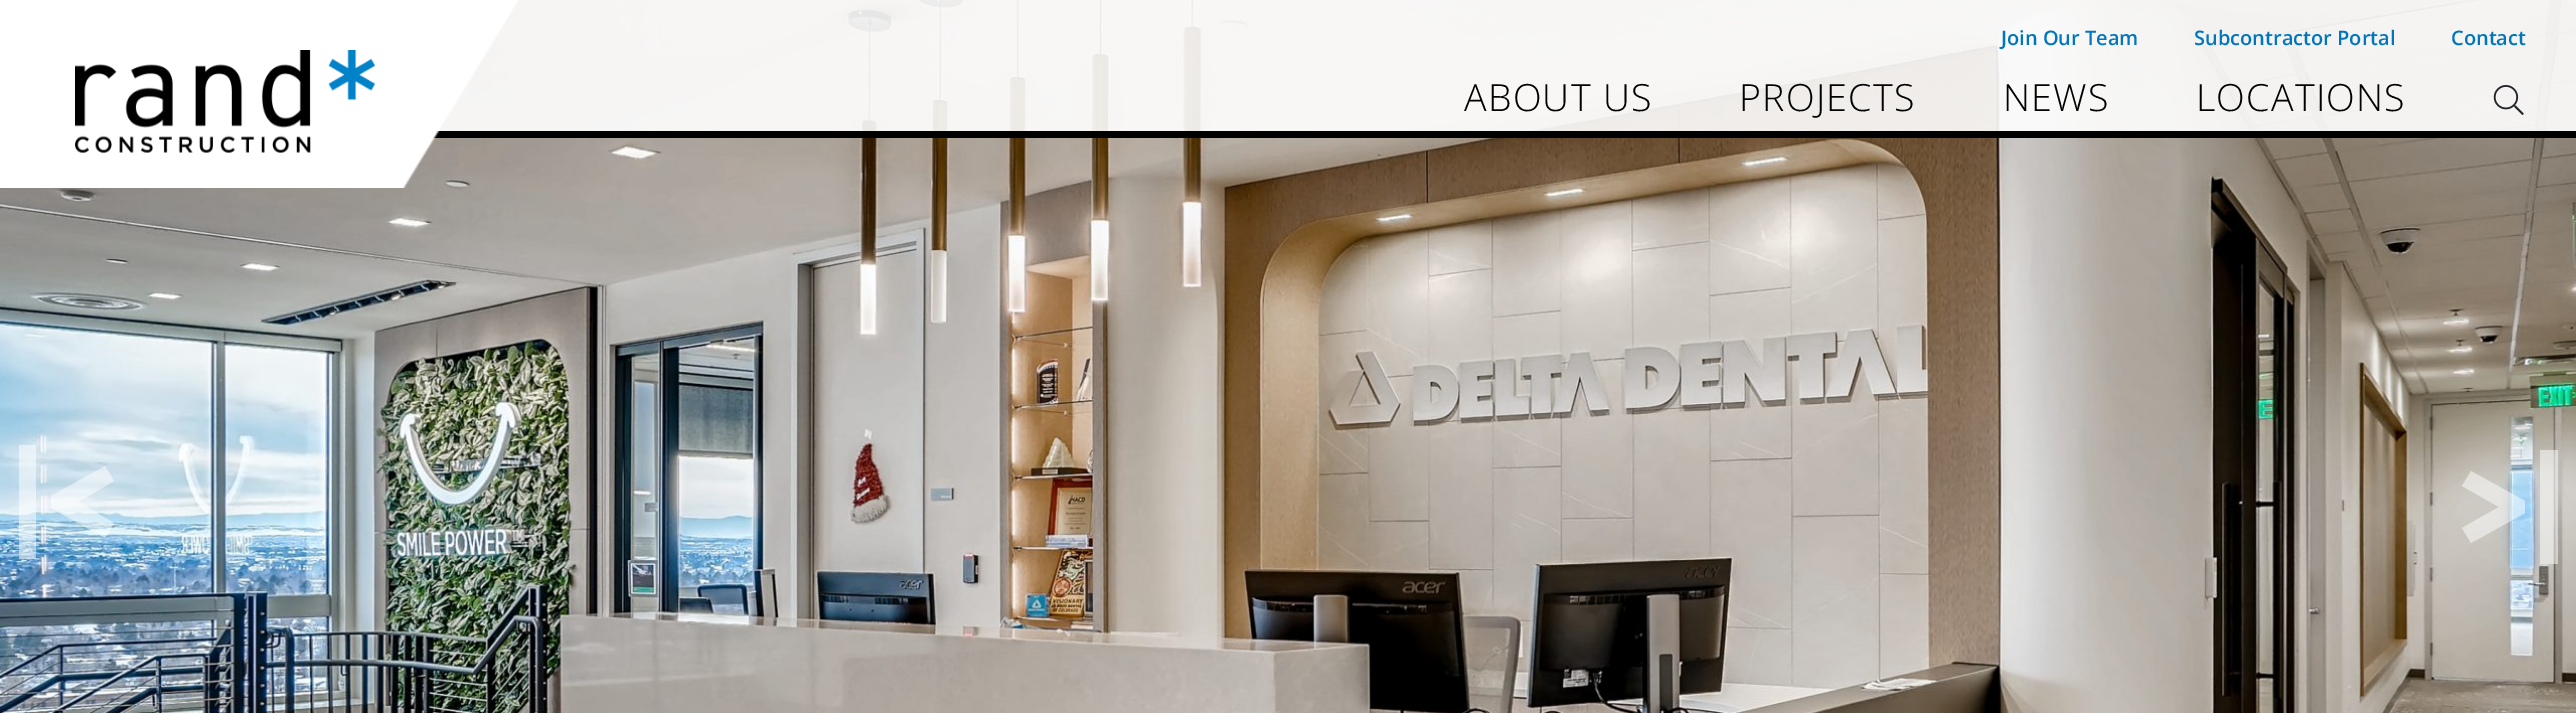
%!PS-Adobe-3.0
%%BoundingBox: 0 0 2576 713
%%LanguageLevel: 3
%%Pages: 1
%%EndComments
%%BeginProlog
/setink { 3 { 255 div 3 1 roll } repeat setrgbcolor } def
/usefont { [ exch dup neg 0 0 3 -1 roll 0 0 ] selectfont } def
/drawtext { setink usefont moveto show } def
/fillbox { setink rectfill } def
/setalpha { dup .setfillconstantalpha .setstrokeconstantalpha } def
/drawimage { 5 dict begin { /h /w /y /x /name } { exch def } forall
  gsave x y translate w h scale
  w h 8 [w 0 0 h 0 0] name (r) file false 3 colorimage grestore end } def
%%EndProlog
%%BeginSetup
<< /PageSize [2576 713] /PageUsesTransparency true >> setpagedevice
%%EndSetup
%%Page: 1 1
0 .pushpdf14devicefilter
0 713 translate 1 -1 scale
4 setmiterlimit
0 0 2576 713 255 255 255 fillbox
(assets/img1.rgb) 0 0 2576 713 drawimage
0.5 setalpha
19 445 17 114 255 255 255 fillbox
105 466 moveto 114 481 lineto 78 502 lineto 114 523 lineto 105 538 lineto 51 508 lineto 51 496 lineto closepath fill
2471 543 moveto 2462 528 lineto 2499 507 lineto 2462 486 lineto 2471 471 lineto 2525 501 lineto 2525 513 lineto closepath fill
2540 450 18 114 255 255 255 fillbox
0.9 setalpha
437 0 2139 131 255 255 255 fillbox
1 setalpha
432 131 2144 7 0 0 0 fillbox
(assets/img2.rgb) 0 0 519 188 drawimage
(assets/img3.rgb) 75 50 300 103 drawimage
(Join Our Team) 2001 45 /OpenSans-SemiBold 20 0 118 189 drawtext
(Subcontractor Portal) 2194 45 /OpenSans-SemiBold 20 0 118 189 drawtext
(Contact) 2451 45 /OpenSans-SemiBold 20 0 118 189 drawtext
/OpenSans-Light 37.5 usefont
0 0 0 setink
1464 111 moveto 1.25 0 (ABOUT US) ashow
1739 111 moveto 1.25 0 (PROJECTS) ashow
2003 111 moveto 1.25 0 (NEWS) ashow
2196 111 moveto 1.25 0 (LOCATIONS) ashow
(assets/img4.rgb) 2493 85 31 30 drawimage
.poppdf14devicefilter showpage
%%EOF
